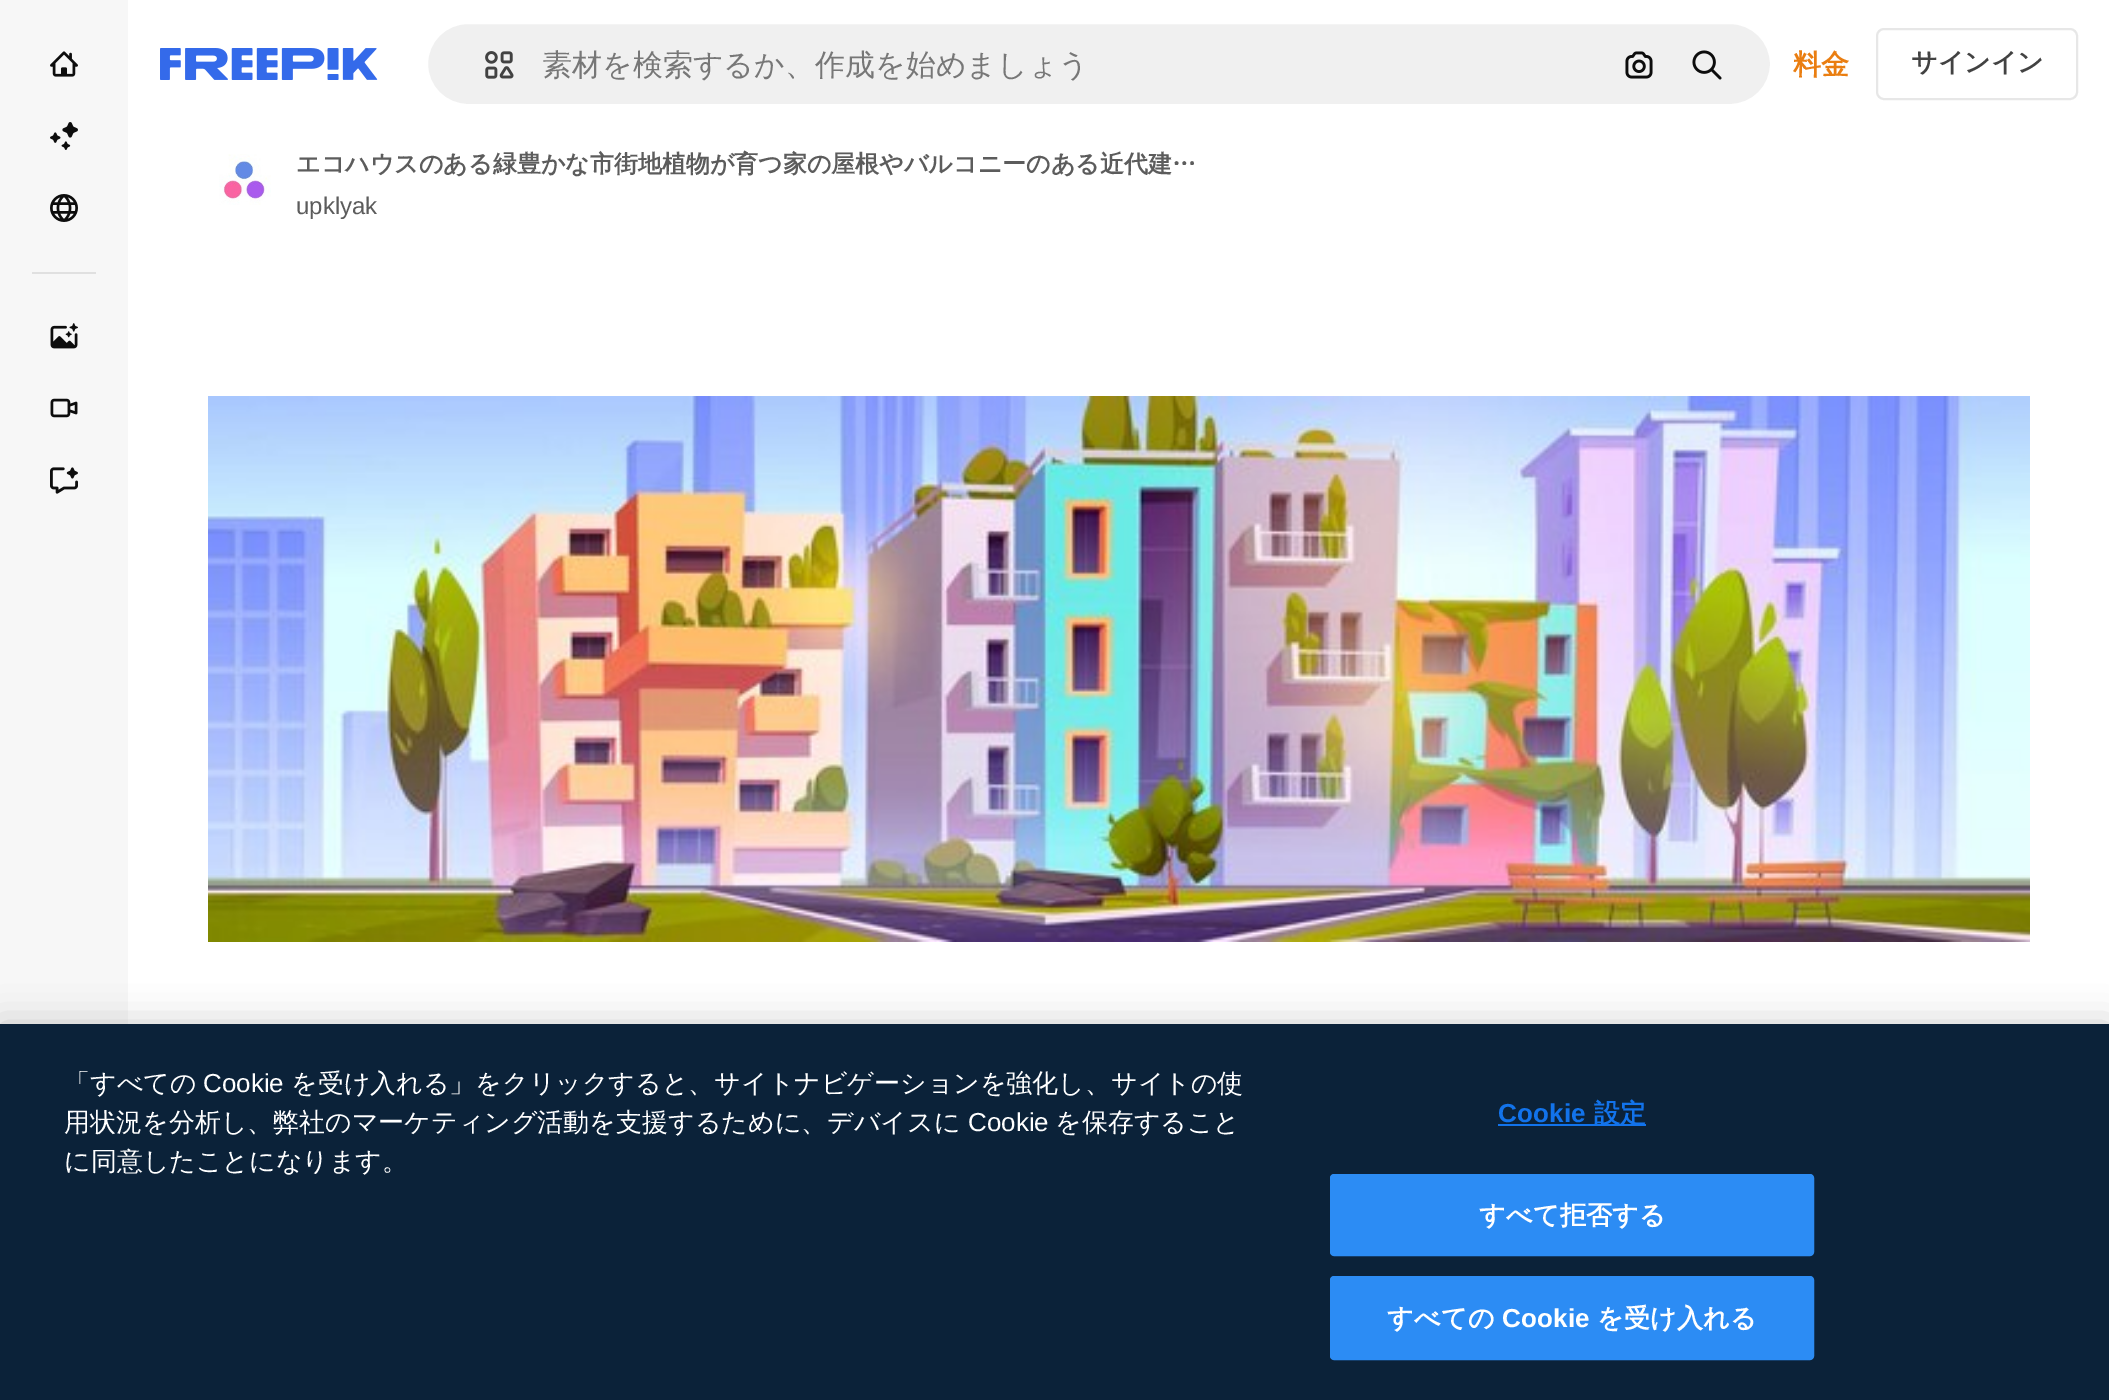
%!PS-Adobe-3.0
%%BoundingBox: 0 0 2109 1400
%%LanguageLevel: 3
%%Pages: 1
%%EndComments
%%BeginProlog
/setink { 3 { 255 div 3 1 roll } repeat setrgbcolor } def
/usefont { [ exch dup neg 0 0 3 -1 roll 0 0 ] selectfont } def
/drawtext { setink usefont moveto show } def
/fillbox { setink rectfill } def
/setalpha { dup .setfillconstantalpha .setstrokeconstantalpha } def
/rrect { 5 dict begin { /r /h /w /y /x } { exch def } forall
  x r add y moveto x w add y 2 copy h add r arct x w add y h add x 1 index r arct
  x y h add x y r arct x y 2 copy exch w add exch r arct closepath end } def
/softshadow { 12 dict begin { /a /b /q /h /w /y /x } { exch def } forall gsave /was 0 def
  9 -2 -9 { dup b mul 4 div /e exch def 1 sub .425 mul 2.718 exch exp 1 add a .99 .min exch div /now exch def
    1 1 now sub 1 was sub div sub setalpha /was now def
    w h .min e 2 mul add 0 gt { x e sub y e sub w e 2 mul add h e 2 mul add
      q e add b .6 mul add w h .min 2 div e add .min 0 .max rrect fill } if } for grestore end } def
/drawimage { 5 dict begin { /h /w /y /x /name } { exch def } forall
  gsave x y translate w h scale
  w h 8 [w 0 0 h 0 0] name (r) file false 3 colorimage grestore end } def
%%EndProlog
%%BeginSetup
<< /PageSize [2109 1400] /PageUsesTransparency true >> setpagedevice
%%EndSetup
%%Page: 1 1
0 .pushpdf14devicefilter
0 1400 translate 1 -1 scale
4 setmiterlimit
0 0 2109 1400 255 255 255 fillbox
0 0 128 1024 247 247 247 fillbox
(assets/img1.rgb) 50 51 28 26 drawimage
(assets/img2.rgb) 50 122 28 28 drawimage
(assets/img3.rgb) 50 194 28 28 drawimage
32 272 64 2 224 224 224 fillbox
(assets/img4.rgb) 50 323 28 26 drawimage
(assets/img5.rgb) 50 398 28 20 drawimage
(assets/img6.rgb) 50 467 28 27 drawimage
(assets/img7.rgb) 160 48 218 32 drawimage
240 240 240 setink
427 23 1344 82 41 rrect gsave fill grestore
255 255 255 setink
2 setlinewidth
stroke
(assets/img8.rgb) 485 51 29 28 drawimage
(素材を検索するか、作成を始めましょう) 542 75 /WenQuanYiZenHei-Medium 30 119 119 119 drawtext
(assets/img9.rgb) 1625 51 28 28 drawimage
(assets/img10.rgb) 1692 50 30 30 drawimage
(料金) 1793 74 /WenQuanYiZenHei-Bold 28 234 126 17 drawtext
231 231 231 setink
1877 29 200 70 7 rrect stroke
(サインイン) 1911 71 /WenQuanYiZenHei-Bold 26 66 66 66 drawtext
(assets/img11.rgb) 219 154 52 51 drawimage
(エコハウスのある緑豊かな市街地植物が育つ家の屋根やバルコニーのある近代建…) 296 172 /WenQuanYiZenHei-Bold 24 92 92 92 drawtext
(upklyak) 296 214 /LiberationSans-Regular 24 92 92 92 drawtext
(assets/img12.rgb) 208 396 1822 546 drawimage
0 0 0 setink
0 1024 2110 376 0 18 0.2 softshadow
0 1024 2109 376 11 34 57 fillbox
(「すべての) 64 1092 /WenQuanYiZenHei-Medium 26 255 255 255 drawtext
(Cookie) 203 1092 /LiberationSans-Regular 26 255 255 255 drawtext
(を受け入れる」をクリックすると、サイトナビゲーションを強化し、サイトの使) 291 1092 /WenQuanYiZenHei-Medium 26 255 255 255 drawtext
(用状況を分析し、弊社のマーケティング活動を支援するために、デバイスに) 64 1131 /WenQuanYiZenHei-Medium 26 255 255 255 drawtext
(Cookie) 968 1131 /LiberationSans-Regular 26 255 255 255 drawtext
(を保存すること) 1055 1131 /WenQuanYiZenHei-Medium 26 255 255 255 drawtext
(に同意したことになります。) 64 1170 /WenQuanYiZenHei-Medium 26 255 255 255 drawtext
/LiberationSans-Bold 26 usefont
18 115 235 setink
1498 1122 moveto 0.25 0 (Cookie) ashow
1498 1124 148 2 18 115 235 fillbox
/WenQuanYiZenHei-Bold 26 usefont
1594 1122 moveto 0.25 0 (設定) ashow
44 140 244 setink
1331 1175 482 80 3 rrect gsave fill grestore
stroke
255 255 255 setink
1479 1224 moveto 0.25 0 (すべて拒否する) ashow
44 140 244 setink
1331 1277 482 82 3 rrect gsave fill grestore
stroke
255 255 255 setink
1387 1327 moveto 0.25 0 (すべての) ashow
/LiberationSans-Bold 26 usefont
1502 1327 moveto 0.25 0 (Cookie) ashow
/WenQuanYiZenHei-Bold 26 usefont
1597 1327 moveto 0.25 0 (を受け入れる) ashow
.poppdf14devicefilter showpage
%%EOF
